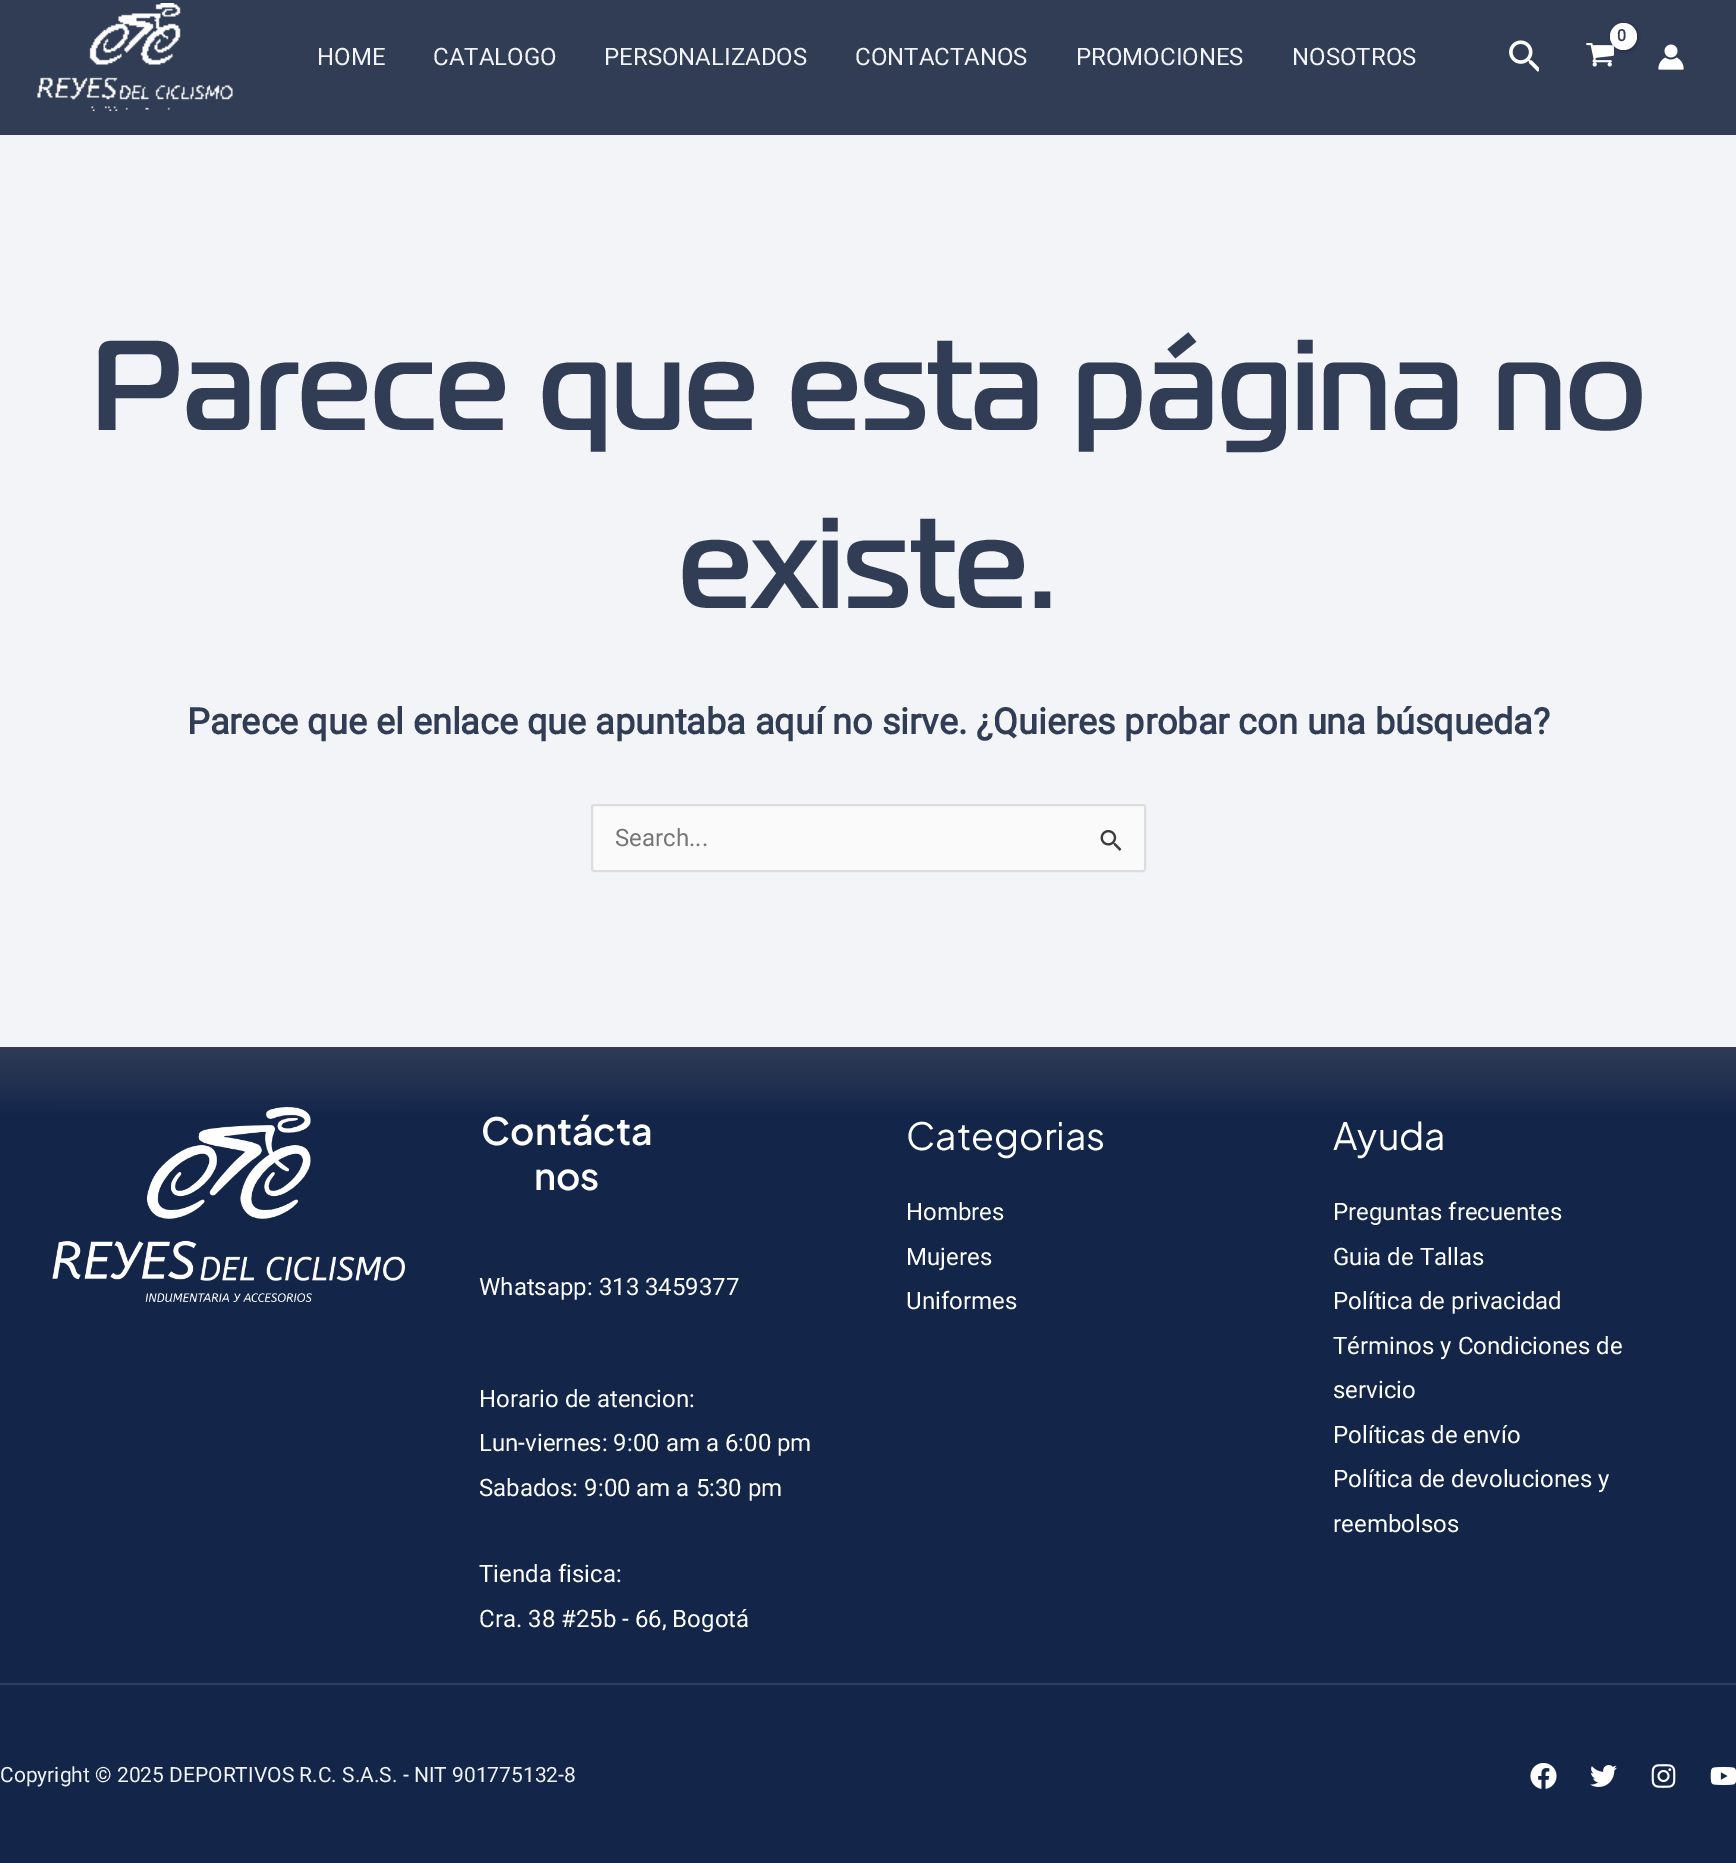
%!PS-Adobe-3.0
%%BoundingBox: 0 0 1736 1863
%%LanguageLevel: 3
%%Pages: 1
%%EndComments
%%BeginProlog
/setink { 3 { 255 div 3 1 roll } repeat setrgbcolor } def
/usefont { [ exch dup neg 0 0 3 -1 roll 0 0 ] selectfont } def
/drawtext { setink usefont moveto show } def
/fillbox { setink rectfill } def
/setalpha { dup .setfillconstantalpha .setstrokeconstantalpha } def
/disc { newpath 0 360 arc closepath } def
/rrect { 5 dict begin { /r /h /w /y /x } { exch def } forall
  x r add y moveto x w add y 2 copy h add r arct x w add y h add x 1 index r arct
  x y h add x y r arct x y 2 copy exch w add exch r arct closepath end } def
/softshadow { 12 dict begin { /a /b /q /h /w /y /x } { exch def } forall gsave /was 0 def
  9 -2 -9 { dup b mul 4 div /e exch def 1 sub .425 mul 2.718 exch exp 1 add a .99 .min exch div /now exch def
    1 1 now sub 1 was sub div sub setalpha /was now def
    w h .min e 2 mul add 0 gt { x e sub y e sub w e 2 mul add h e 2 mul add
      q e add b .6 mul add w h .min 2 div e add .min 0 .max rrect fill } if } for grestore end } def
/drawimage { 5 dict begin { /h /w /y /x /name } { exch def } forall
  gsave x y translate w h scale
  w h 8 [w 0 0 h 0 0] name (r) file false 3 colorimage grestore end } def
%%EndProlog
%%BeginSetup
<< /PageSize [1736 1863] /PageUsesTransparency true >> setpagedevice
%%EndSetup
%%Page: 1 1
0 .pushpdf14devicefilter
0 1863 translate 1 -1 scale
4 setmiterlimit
0 0 1736 1863 242 244 248 fillbox
0 0 1736 135 49 60 85 fillbox
(assets/img1.rgb) 37 3 196 108 drawimage
(assets/img2.rgb) 1586 43 29 24 drawimage
0 0 0 setink
1611 24 27 27 13.5 2 0.3 softshadow
255 255 255 setink
1623.5 36.5 13.5 disc fill
/Roboto-Bold 16 usefont
49 60 85 setink
1617 41 moveto -1 0 (0) ashow
(assets/img3.rgb) 1509 40 30 32 drawimage
(assets/img4.rgb) 1658 44 26 26 drawimage
(HOME) 317 65 /Roboto-Regular 24 242 244 248 drawtext
(CATALOGO) 433 65 /Roboto-Regular 24 242 244 248 drawtext
(PERSONALIZADOS) 604 65 /Roboto-Regular 24 242 244 248 drawtext
(CONTACTANOS) 855 65 /Roboto-Regular 24 242 244 248 drawtext
(PROMOCIONES) 1076 65 /Roboto-Regular 24 242 244 248 drawtext
(NOSOTROS) 1292 65 /Roboto-Regular 24 242 244 248 drawtext
(Parece que esta página no) 91 430 /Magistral-Medium 127.5 49 60 85 drawtext
(existe.) 679 608 /Magistral-Medium 127.5 49 60 85 drawtext
(Parece que el enlace que apuntaba aquí no sirve. ¿Quieres probar con una búsqueda?) 187 734 /Roboto-Bold 36 49 60 85 drawtext
250 250 250 setink
592 805 553 66 2 rrect gsave fill grestore
221 221 221 setink
2 setlinewidth
stroke
(Search...) 615 846 /Roboto-Regular 24 117 117 117 drawtext
(assets/img5.rgb) 1100 830 21 21 drawimage
gsave 0 1047 moveto 1736 1047 lineto 1736 1683 lineto 0 1683 lineto closepath clip newpath
<< /ShadingType 2 /ColorSpace /DeviceRGB /Coords [869 1683 869 1047] /Extend [true true] /Function << /FunctionType 3 /Domain [0 1] /Functions [<< /FunctionType 2 /Domain [0 1] /C0 [0.075 0.149 0.29] /C1 [0.075 0.149 0.29] /N 1 >> << /FunctionType 2 /Domain [0 1] /C0 [0.075 0.149 0.29] /C1 [0.188 0.235 0.333] /N 1 >>] /Bounds [0.89] /Encode [0 1 0 1] >> >> shfill grestore
(assets/img6.rgb) 52 1107 353 195 drawimage
(Contácta) 481 1145 /PlusJakartaSans-SemiBold 37.5 255 255 255 drawtext
(nos) 534 1190 /PlusJakartaSans-SemiBold 37.5 255 255 255 drawtext
(Whatsapp: 313 3459377) 479 1295 /Roboto-Regular 24 255 255 255 drawtext
(Horario de atencion:) 479 1407 /Roboto-Regular 24 255 255 255 drawtext
(Lun-viernes: 9:00 am a 6:00 pm) 479 1451 /Roboto-Regular 24 255 255 255 drawtext
(Sabados: 9:00 am a 5:30 pm) 479 1496 /Roboto-Regular 24 255 255 255 drawtext
(Tienda fisica:) 479 1582 /Roboto-Regular 24 255 255 255 drawtext
(Cra. 38 #25b - 66, Bogotá) 479 1627 /Roboto-Regular 24 255 255 255 drawtext
(Categorias) 906 1150 /PlusJakartaSans-Regular 37.5 255 255 255 drawtext
(Hombres) 906 1220 /Roboto-Regular 24 255 255 255 drawtext
(Mujeres) 906 1265 /Roboto-Regular 24 255 255 255 drawtext
(Uniformes) 906 1309 /Roboto-Regular 24 255 255 255 drawtext
(Ayuda) 1333 1150 /PlusJakartaSans-Regular 37.5 255 255 255 drawtext
(Preguntas frecuentes) 1333 1220 /Roboto-Regular 24 255 255 255 drawtext
(Guia de Tallas) 1333 1265 /Roboto-Regular 24 255 255 255 drawtext
(Política de privacidad) 1333 1309 /Roboto-Regular 24 255 255 255 drawtext
(Términos y Condiciones de) 1333 1354 /Roboto-Regular 24 255 255 255 drawtext
(servicio) 1333 1398 /Roboto-Regular 24 255 255 255 drawtext
(Políticas de envío) 1333 1443 /Roboto-Regular 24 255 255 255 drawtext
(Política de devoluciones y) 1333 1487 /Roboto-Regular 24 255 255 255 drawtext
(reembolsos) 1333 1532 /Roboto-Regular 24 255 255 255 drawtext
0 1685 1736 178 19 38 74 fillbox
0 1683 1736 2 45 62 94 fillbox
(Copyright © 2025 DEPORTIVOS R.C. S.A.S. - NIT 901775132-8) 0 1782 /Roboto-Regular 21 242 244 248 drawtext
(assets/img7.rgb) 1530 1763 27 26 drawimage
(assets/img8.rgb) 1590 1765 27 22 drawimage
(assets/img9.rgb) 1651 1764 25 24 drawimage
(assets/img10.rgb) 1710 1767 26 18 drawimage
.poppdf14devicefilter showpage
%%EOF
